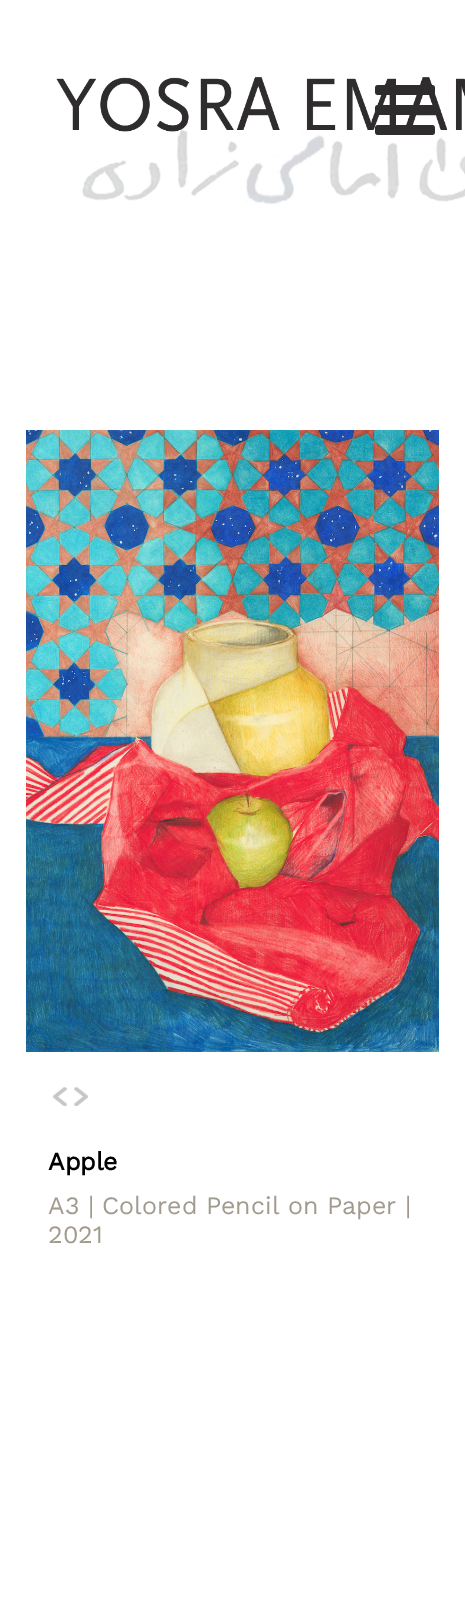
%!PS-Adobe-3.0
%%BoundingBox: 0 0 465 1616
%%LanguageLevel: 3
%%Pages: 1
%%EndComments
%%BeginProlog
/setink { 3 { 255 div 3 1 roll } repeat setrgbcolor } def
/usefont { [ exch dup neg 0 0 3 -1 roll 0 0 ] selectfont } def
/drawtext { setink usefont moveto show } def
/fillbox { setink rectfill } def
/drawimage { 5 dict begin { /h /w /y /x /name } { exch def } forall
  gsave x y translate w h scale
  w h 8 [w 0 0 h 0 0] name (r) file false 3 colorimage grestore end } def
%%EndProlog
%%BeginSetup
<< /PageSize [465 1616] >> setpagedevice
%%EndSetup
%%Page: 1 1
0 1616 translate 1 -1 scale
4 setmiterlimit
0 0 465 1616 255 255 255 fillbox
(assets/img1.rgb) 56 77 409 128 drawimage
(assets/img2.rgb) 375 85 60 50 drawimage
(assets/img3.rgb) 26 430 413 622 drawimage
(assets/img4.rgb) 52 1087 15 19 drawimage
(assets/img5.rgb) 74 1087 14 19 drawimage
(Apple) 48 1170 /WorkSans-Bold 25 0 0 0 drawtext
(A3 | Colored Pencil on Paper |) 48 1214 /WorkSans-Regular 25 161 154 141 drawtext
(2021) 48 1243 /WorkSans-Regular 25 161 154 141 drawtext
showpage
%%EOF
